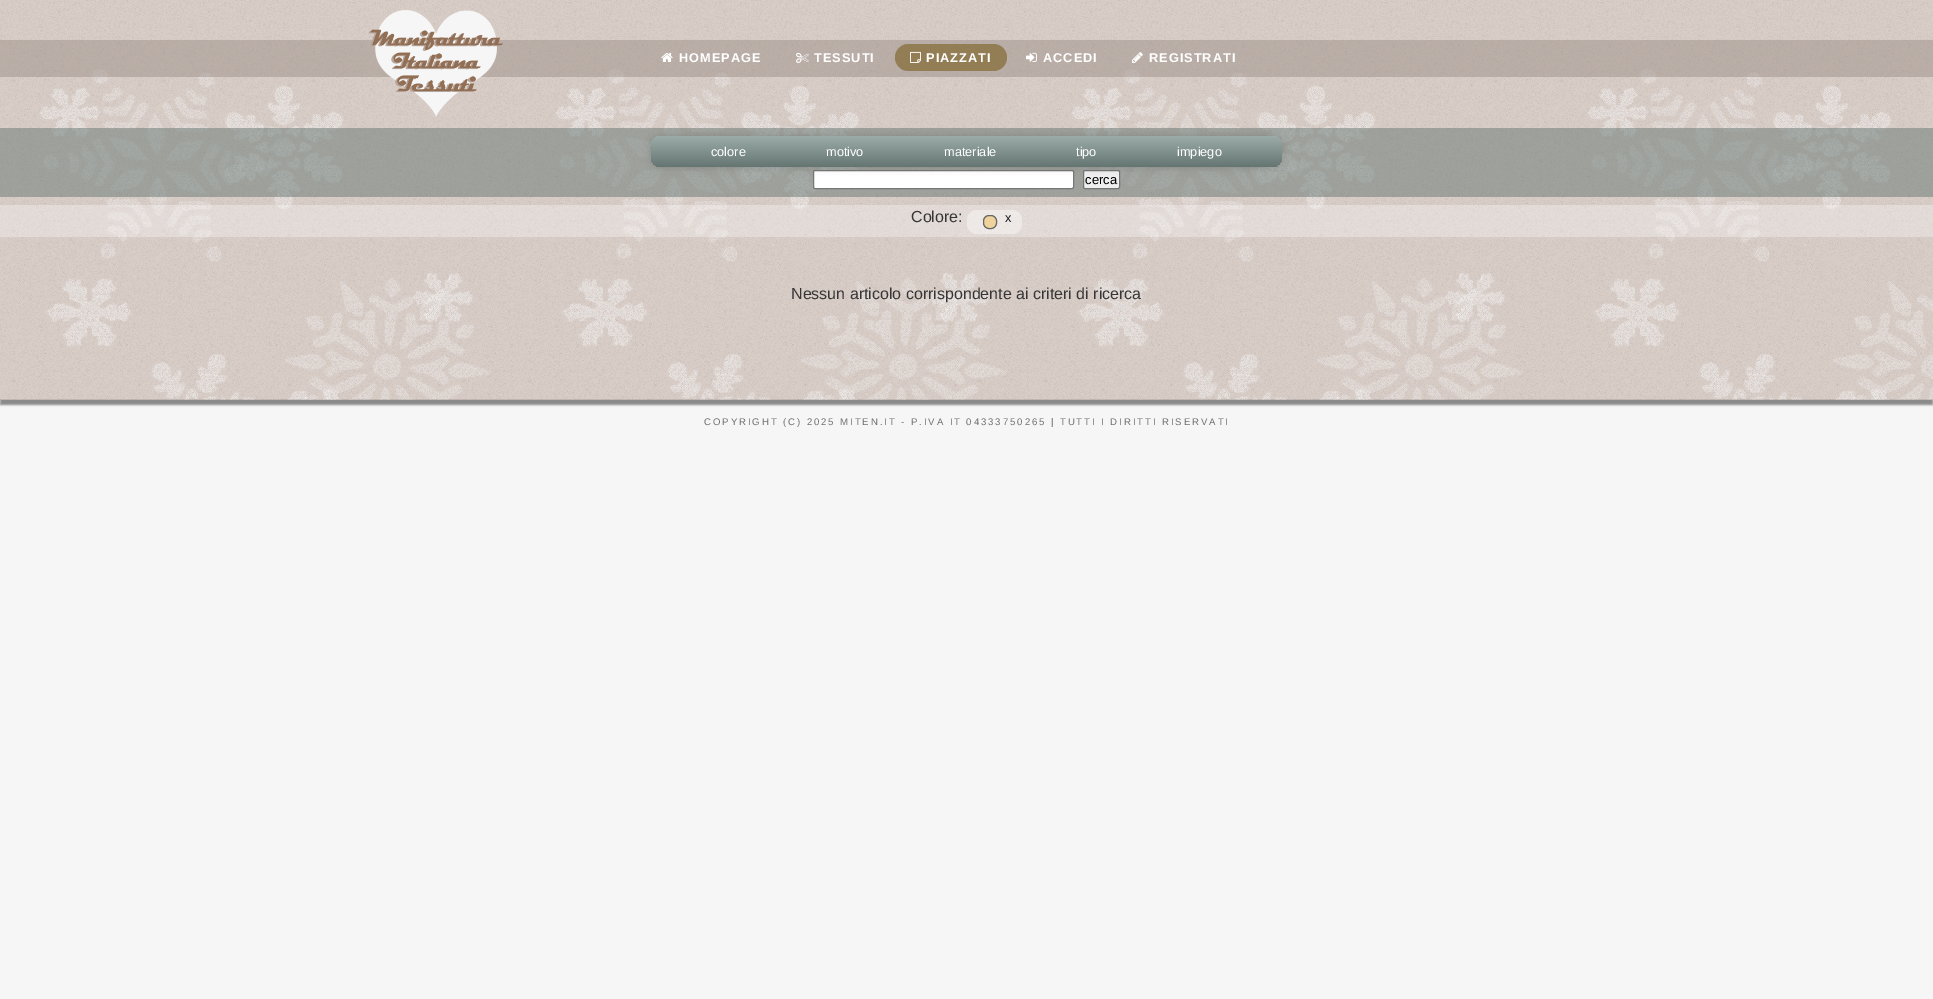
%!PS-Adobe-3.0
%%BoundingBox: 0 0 1933 999
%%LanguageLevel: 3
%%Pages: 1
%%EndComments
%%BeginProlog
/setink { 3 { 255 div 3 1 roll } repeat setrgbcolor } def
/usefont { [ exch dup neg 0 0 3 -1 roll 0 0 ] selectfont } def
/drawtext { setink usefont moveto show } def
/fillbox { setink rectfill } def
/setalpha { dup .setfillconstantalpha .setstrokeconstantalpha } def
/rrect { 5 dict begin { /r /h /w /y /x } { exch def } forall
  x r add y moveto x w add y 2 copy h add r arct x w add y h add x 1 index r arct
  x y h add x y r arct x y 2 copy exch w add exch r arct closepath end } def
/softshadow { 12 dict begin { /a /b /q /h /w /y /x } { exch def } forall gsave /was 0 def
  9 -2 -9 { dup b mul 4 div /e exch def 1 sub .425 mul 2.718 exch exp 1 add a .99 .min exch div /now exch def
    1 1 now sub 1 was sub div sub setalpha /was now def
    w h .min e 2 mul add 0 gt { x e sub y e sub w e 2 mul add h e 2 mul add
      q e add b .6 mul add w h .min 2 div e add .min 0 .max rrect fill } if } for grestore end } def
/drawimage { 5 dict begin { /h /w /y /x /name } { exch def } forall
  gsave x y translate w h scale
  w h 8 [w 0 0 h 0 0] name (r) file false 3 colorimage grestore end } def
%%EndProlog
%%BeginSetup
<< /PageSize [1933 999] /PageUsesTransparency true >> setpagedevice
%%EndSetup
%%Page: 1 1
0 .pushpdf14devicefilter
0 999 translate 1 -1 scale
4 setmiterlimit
0 0 1933 999 246 246 246 fillbox
136 136 136 setink
0 5 1933 400 0 1 1 softshadow
0 0 1933 400 211 198 191 fillbox
(assets/img1.rgb) 0 0 1933 400 drawimage
0.1 setalpha
0 399 1933 1 0 0 0 fillbox
0.5 setalpha
0 40 1933 37 157 144 137 fillbox
1 setalpha
(assets/img2.rgb) 368 10 135 107 drawimage
(assets/img3.rgb) 661 52 12 10 drawimage
/LiberationSans-Bold 12.75 usefont
255 255 255 setink
679 62 moveto 1 0 (HOMEPAGE) ashow
(assets/img4.rgb) 796 52 13 11 drawimage
814 62 moveto 1 0 (TESSUTI) ashow
146 125 84 setink
895 44 112 27 13.5 rrect fill
(assets/img5.rgb) 910 51 11 12 drawimage
255 255 255 setink
926 62 moveto 1 0 (PIAZZATI) ashow
(assets/img6.rgb) 1026 52 11 10 drawimage
1043 62 moveto 1 0 (ACCEDI) ashow
(assets/img7.rgb) 1132 52 11 11 drawimage
1149 62 moveto 1 0 (REGISTRATI) ashow
0.5 setalpha
0 128 1933 69 101 118 114 fillbox
1 setalpha
255 255 255 setink
813.5 170.5 260 18 1.5 rrect gsave fill grestore
118 118 118 setink
stroke
239 239 239 setink
1083.5 170.5 36 18 1.5 rrect gsave fill grestore
118 118 118 setink
stroke
0 0 0 setink
651 136 631 31 10 4.5 0.15 softshadow
gsave 651 136 631 31 10 rrect clip newpath
<< /ShadingType 2 /ColorSpace /DeviceRGB /Coords [967 136 967 167] /Extend [true true] /Function << /FunctionType 2 /Domain [0 1] /C0 [0.612 0.675 0.659] /C1 [0.396 0.463 0.447] /N 1 >> >> shfill grestore
(colore) 711 156 /LiberationSans-Regular 12.75 255 255 255 drawtext
(motivo) 826 156 /LiberationSans-Regular 12.75 255 255 255 drawtext
(materiale) 944 156 /LiberationSans-Regular 12.75 255 255 255 drawtext
(tipo) 1076 156 /LiberationSans-Regular 12.75 255 255 255 drawtext
(impiego) 1177 156 /LiberationSans-Regular 12.75 255 255 255 drawtext
(cerca) 1085 184 /LiberationSans-Regular 13 0 0 0 drawtext
0.3 setalpha
0 205 1933 32 255 255 255 fillbox
1 setalpha
(Colore:) 911 222 /LiberationSans-Regular 16 54 54 54 drawtext
0.4 setalpha
255 255 255 setink
967 210 55 24 10 rrect fill
1 setalpha
240 210 156 setink
983.5 215.5 13 13 5.5 rrect gsave fill grestore
102 102 102 setink
stroke
(x) 1005 222 /LiberationSans-Regular 12.75 23 23 23 drawtext
(Nessun articolo corrispondente ai criteri di ricerca) 791 299 /LiberationSans-Regular 16 54 54 54 drawtext
/LiberationSans-Regular 9.6 usefont
111 111 111 setink
704 425 moveto 1.92 0 (COPYRIGHT \(C\) 2025 MITEN.IT - P.IVA IT 04333750265 | TUTTI I DIRITTI RISERVATI) ashow
.poppdf14devicefilter showpage
%%EOF
